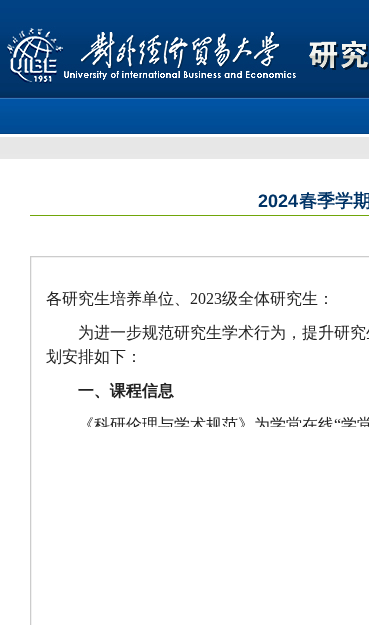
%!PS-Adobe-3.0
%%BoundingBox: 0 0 369 625
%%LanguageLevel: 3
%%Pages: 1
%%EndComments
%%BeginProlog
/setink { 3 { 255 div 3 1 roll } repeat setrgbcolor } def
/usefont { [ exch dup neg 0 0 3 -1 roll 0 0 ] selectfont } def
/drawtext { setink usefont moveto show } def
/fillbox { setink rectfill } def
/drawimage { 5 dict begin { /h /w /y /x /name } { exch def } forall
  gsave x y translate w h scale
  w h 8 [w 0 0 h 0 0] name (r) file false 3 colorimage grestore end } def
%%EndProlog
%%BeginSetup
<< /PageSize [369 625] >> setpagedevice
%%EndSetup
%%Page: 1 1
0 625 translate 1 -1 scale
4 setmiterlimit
0 0 369 625 255 255 255 fillbox
(assets/img1.rgb) 0 0 369 134 drawimage
(assets/img2.rgb) 0 134 369 25 drawimage
(assets/img3.rgb) 7 26 362 58 drawimage
(2024) 258 207 /LiberationSans-Bold 18 0 51 102 drawtext
(春季学期) 299 207 /WenQuanYiZenHei-Bold 18 0 51 102 drawtext
30 215 339 1 112 166 9 fillbox
204 204 204 setink
30.5 256.5 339 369 rectstroke
(assets/img4.rgb) 46 290 323 137 drawimage
showpage
%%EOF
